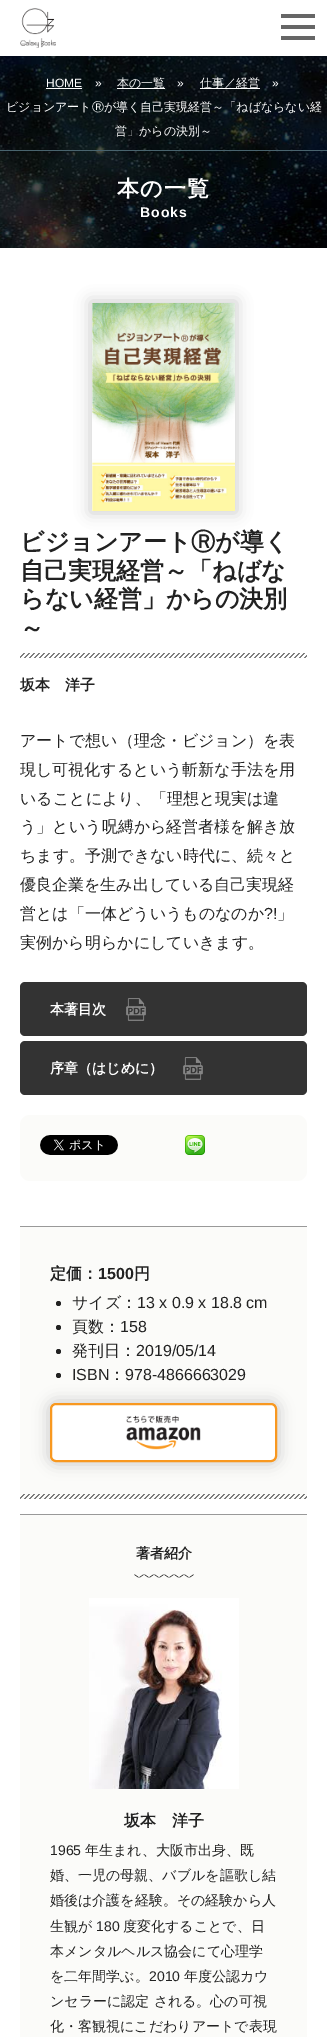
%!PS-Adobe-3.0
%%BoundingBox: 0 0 327 2037
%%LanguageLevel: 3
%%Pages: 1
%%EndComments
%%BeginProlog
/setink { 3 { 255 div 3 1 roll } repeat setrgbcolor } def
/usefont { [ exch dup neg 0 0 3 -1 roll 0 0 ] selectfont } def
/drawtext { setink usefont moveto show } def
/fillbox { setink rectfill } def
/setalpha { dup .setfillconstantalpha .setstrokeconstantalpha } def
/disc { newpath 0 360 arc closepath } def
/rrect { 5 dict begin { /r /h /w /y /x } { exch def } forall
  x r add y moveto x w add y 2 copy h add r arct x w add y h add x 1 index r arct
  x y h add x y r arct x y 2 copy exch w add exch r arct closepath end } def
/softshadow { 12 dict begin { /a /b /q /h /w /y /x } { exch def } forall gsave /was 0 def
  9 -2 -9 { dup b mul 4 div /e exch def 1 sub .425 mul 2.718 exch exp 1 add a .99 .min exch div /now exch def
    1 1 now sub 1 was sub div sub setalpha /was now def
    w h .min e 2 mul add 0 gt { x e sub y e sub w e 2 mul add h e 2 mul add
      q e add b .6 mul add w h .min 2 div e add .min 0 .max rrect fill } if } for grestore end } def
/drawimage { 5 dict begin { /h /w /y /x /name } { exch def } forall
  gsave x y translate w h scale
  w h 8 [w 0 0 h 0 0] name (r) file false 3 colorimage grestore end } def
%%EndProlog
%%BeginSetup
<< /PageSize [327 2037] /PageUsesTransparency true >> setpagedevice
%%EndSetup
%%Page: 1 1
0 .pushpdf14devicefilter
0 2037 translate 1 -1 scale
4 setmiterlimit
0 0 327 2037 255 255 255 fillbox
(assets/img1.rgb) 20 8 36 40 drawimage
281 14 34 4 102 102 102 fillbox
281 25 34 4 102 102 102 fillbox
281 36 34 4 102 102 102 fillbox
(assets/img2.rgb) 0 56 327 192 drawimage
(HOME) 46 87 /LiberationSans-Regular 12 255 255 255 drawtext
46 88 36 1 255 255 255 fillbox
(») 95 87 /LiberationSans-Regular 12 255 255 255 drawtext
117 88 48 1 255 255 255 fillbox
(本の一覧) 117 87 /WenQuanYiZenHei-Medium 12 255 255 255 drawtext
(») 177 87 /LiberationSans-Regular 12 255 255 255 drawtext
200 88 60 1 255 255 255 fillbox
(仕事／経営) 200 87 /WenQuanYiZenHei-Medium 12 255 255 255 drawtext
(») 272 87 /LiberationSans-Regular 12 255 255 255 drawtext
(ビジョンアートⓇが導く自己実現経営～「ねばならない経) 6 111 /WenQuanYiZenHei-Medium 12 255 255 255 drawtext
(営」からの決別～) 115 135 /WenQuanYiZenHei-Medium 12 255 255 255 drawtext
0 150 327 1 73 100 110 fillbox
/WenQuanYiZenHei-Bold 22 usefont
255 255 255 setink
117 196 moveto 1 0 (本の一覧) ashow
/LiberationSans-Bold 14 usefont
140 217 moveto 1 0 (Books) ashow
204 204 204 setink
90 301 147 212 0 7.5 1 softshadow
(assets/img3.rgb) 92 303 143 208 drawimage
(assets/img4.rgb) 20 653 287 5 drawimage
(ビジョンアートⓇが導く) 20 550 /WenQuanYiZenHei-Bold 24 34 34 34 drawtext
(自己実現経営～「ねばな) 20 579 /WenQuanYiZenHei-Bold 24 34 34 34 drawtext
(らない経営」からの決別) 20 607 /WenQuanYiZenHei-Bold 24 34 34 34 drawtext
(～) 20 636 /WenQuanYiZenHei-Bold 24 34 34 34 drawtext
(坂本　洋子) 20 690 /WenQuanYiZenHei-Bold 15 34 34 34 drawtext
(アートで想い（理念・ビジョン）を表) 20 746 /WenQuanYiZenHei-Medium 16 34 34 34 drawtext
(現し可視化するという斬新な手法を用) 20 775 /WenQuanYiZenHei-Medium 16 34 34 34 drawtext
(いることにより、「理想と現実は違) 20 804 /WenQuanYiZenHei-Medium 16 34 34 34 drawtext
(う」という呪縛から経営者様を解き放) 20 832 /WenQuanYiZenHei-Medium 16 34 34 34 drawtext
(ちます。予測できない時代に、続々と) 20 861 /WenQuanYiZenHei-Medium 16 34 34 34 drawtext
(優良企業を生み出している自己実現経) 20 890 /WenQuanYiZenHei-Medium 16 34 34 34 drawtext
(営とは「一体どういうものなのか) 20 919 /WenQuanYiZenHei-Medium 16 34 34 34 drawtext
(?!) 264 919 /LiberationSans-Regular 16 34 34 34 drawtext
(」) 277 919 /WenQuanYiZenHei-Medium 16 34 34 34 drawtext
(実例から明らかにしていきます。) 20 948 /WenQuanYiZenHei-Medium 16 34 34 34 drawtext
51 51 51 setink
20 982 287 54 5 rrect fill
(本著目次) 50 1014 /WenQuanYiZenHei-Bold 14 255 255 255 drawtext
(assets/img5.rgb) 126 998 20 23 drawimage
51 51 51 setink
20 1041 287 54 5 rrect fill
(序章（はじめに）) 50 1073 /WenQuanYiZenHei-Bold 14 255 255 255 drawtext
(assets/img5.rgb) 183 1057 20 23 drawimage
251 251 249 setink
20 1115 287 66 10 rrect fill
(assets/img6.rgb) 40 1135 78 20 drawimage
(assets/img7.rgb) 185 1135 20 20 drawimage
20 1227 287 272 251 251 249 fillbox
(assets/img8.rgb) 20 1494 287 5 drawimage
20 1226 287 1 153 153 153 fillbox
(定価：) 50 1279 /WenQuanYiZenHei-Bold 16 34 34 34 drawtext
(1500) 98 1279 /LiberationSans-Bold 16 34 34 34 drawtext
(円) 134 1279 /WenQuanYiZenHei-Bold 16 34 34 34 drawtext
58.5 1303.5 2.5 disc fill
(サイズ：) 72 1308 /WenQuanYiZenHei-Medium 16 34 34 34 drawtext
(13 x 0.9 x 18.8 cm) 137 1308 /LiberationSans-Regular 16 34 34 34 drawtext
58.5 1327.5 2.5 disc fill
(頁数：) 72 1332 /WenQuanYiZenHei-Medium 16 34 34 34 drawtext
(158) 120 1332 /LiberationSans-Regular 16 34 34 34 drawtext
58.5 1351.5 2.5 disc fill
(発刊日：) 72 1356 /WenQuanYiZenHei-Medium 16 34 34 34 drawtext
(2019/05/14) 136 1356 /LiberationSans-Regular 16 34 34 34 drawtext
204 204 204 setink
48 1401 231 63 8 7.5 1 softshadow
34 34 34 setink
58.5 1375.5 2.5 disc fill
(ISBN) 72 1380 /LiberationSans-Regular 16 34 34 34 drawtext
(：) 109 1380 /WenQuanYiZenHei-Medium 16 34 34 34 drawtext
(978-4866663029) 125 1380 /LiberationSans-Regular 16 34 34 34 drawtext
255 255 255 setink
51 1404 225 57 5 rrect gsave fill grestore
248 152 32 setink
2 setlinewidth
stroke
(assets/img9.rgb) 126 1415 75 35 drawimage
20 1515 287 522 251 251 249 fillbox
20 1514 287 1 153 153 153 fillbox
(assets/img10.rgb) 134 1574 60 4 drawimage
(著者紹介) 136 1558 /WenQuanYiZenHei-Bold 14 34 34 34 drawtext
(assets/img11.rgb) 89 1598 150 191 drawimage
(坂本　洋子) 124 1826 /WenQuanYiZenHei-Bold 16 34 34 34 drawtext
(1965) 50 1855 /LiberationSans-Regular 14 34 34 34 drawtext
(年生まれ、大阪市出身、既) 85 1855 /WenQuanYiZenHei-Medium 14 34 34 34 drawtext
(婚、一児の母親、バブルを謳歌し結) 50 1880 /WenQuanYiZenHei-Medium 14 34 34 34 drawtext
(婚後は介護を経験。その経験から人) 50 1905 /WenQuanYiZenHei-Medium 14 34 34 34 drawtext
(生観が) 50 1931 /WenQuanYiZenHei-Medium 14 34 34 34 drawtext
(180) 96 1931 /LiberationSans-Regular 14 34 34 34 drawtext
(度変化することで、日) 123 1931 /WenQuanYiZenHei-Medium 14 34 34 34 drawtext
(本メンタルヘルス協会にて心理学) 50 1956 /WenQuanYiZenHei-Medium 14 34 34 34 drawtext
(を二年間学ぶ。) 50 1981 /WenQuanYiZenHei-Medium 14 34 34 34 drawtext
(2010) 149 1981 /LiberationSans-Regular 14 34 34 34 drawtext
(年度公認カウ) 184 1981 /WenQuanYiZenHei-Medium 14 34 34 34 drawtext
(ンセラーに認定 される。心の可視) 50 2006 /WenQuanYiZenHei-Medium 14 34 34 34 drawtext
(化・客観視にこだわりアートで表現) 50 2031 /WenQuanYiZenHei-Medium 14 34 34 34 drawtext
.poppdf14devicefilter showpage
%%EOF
